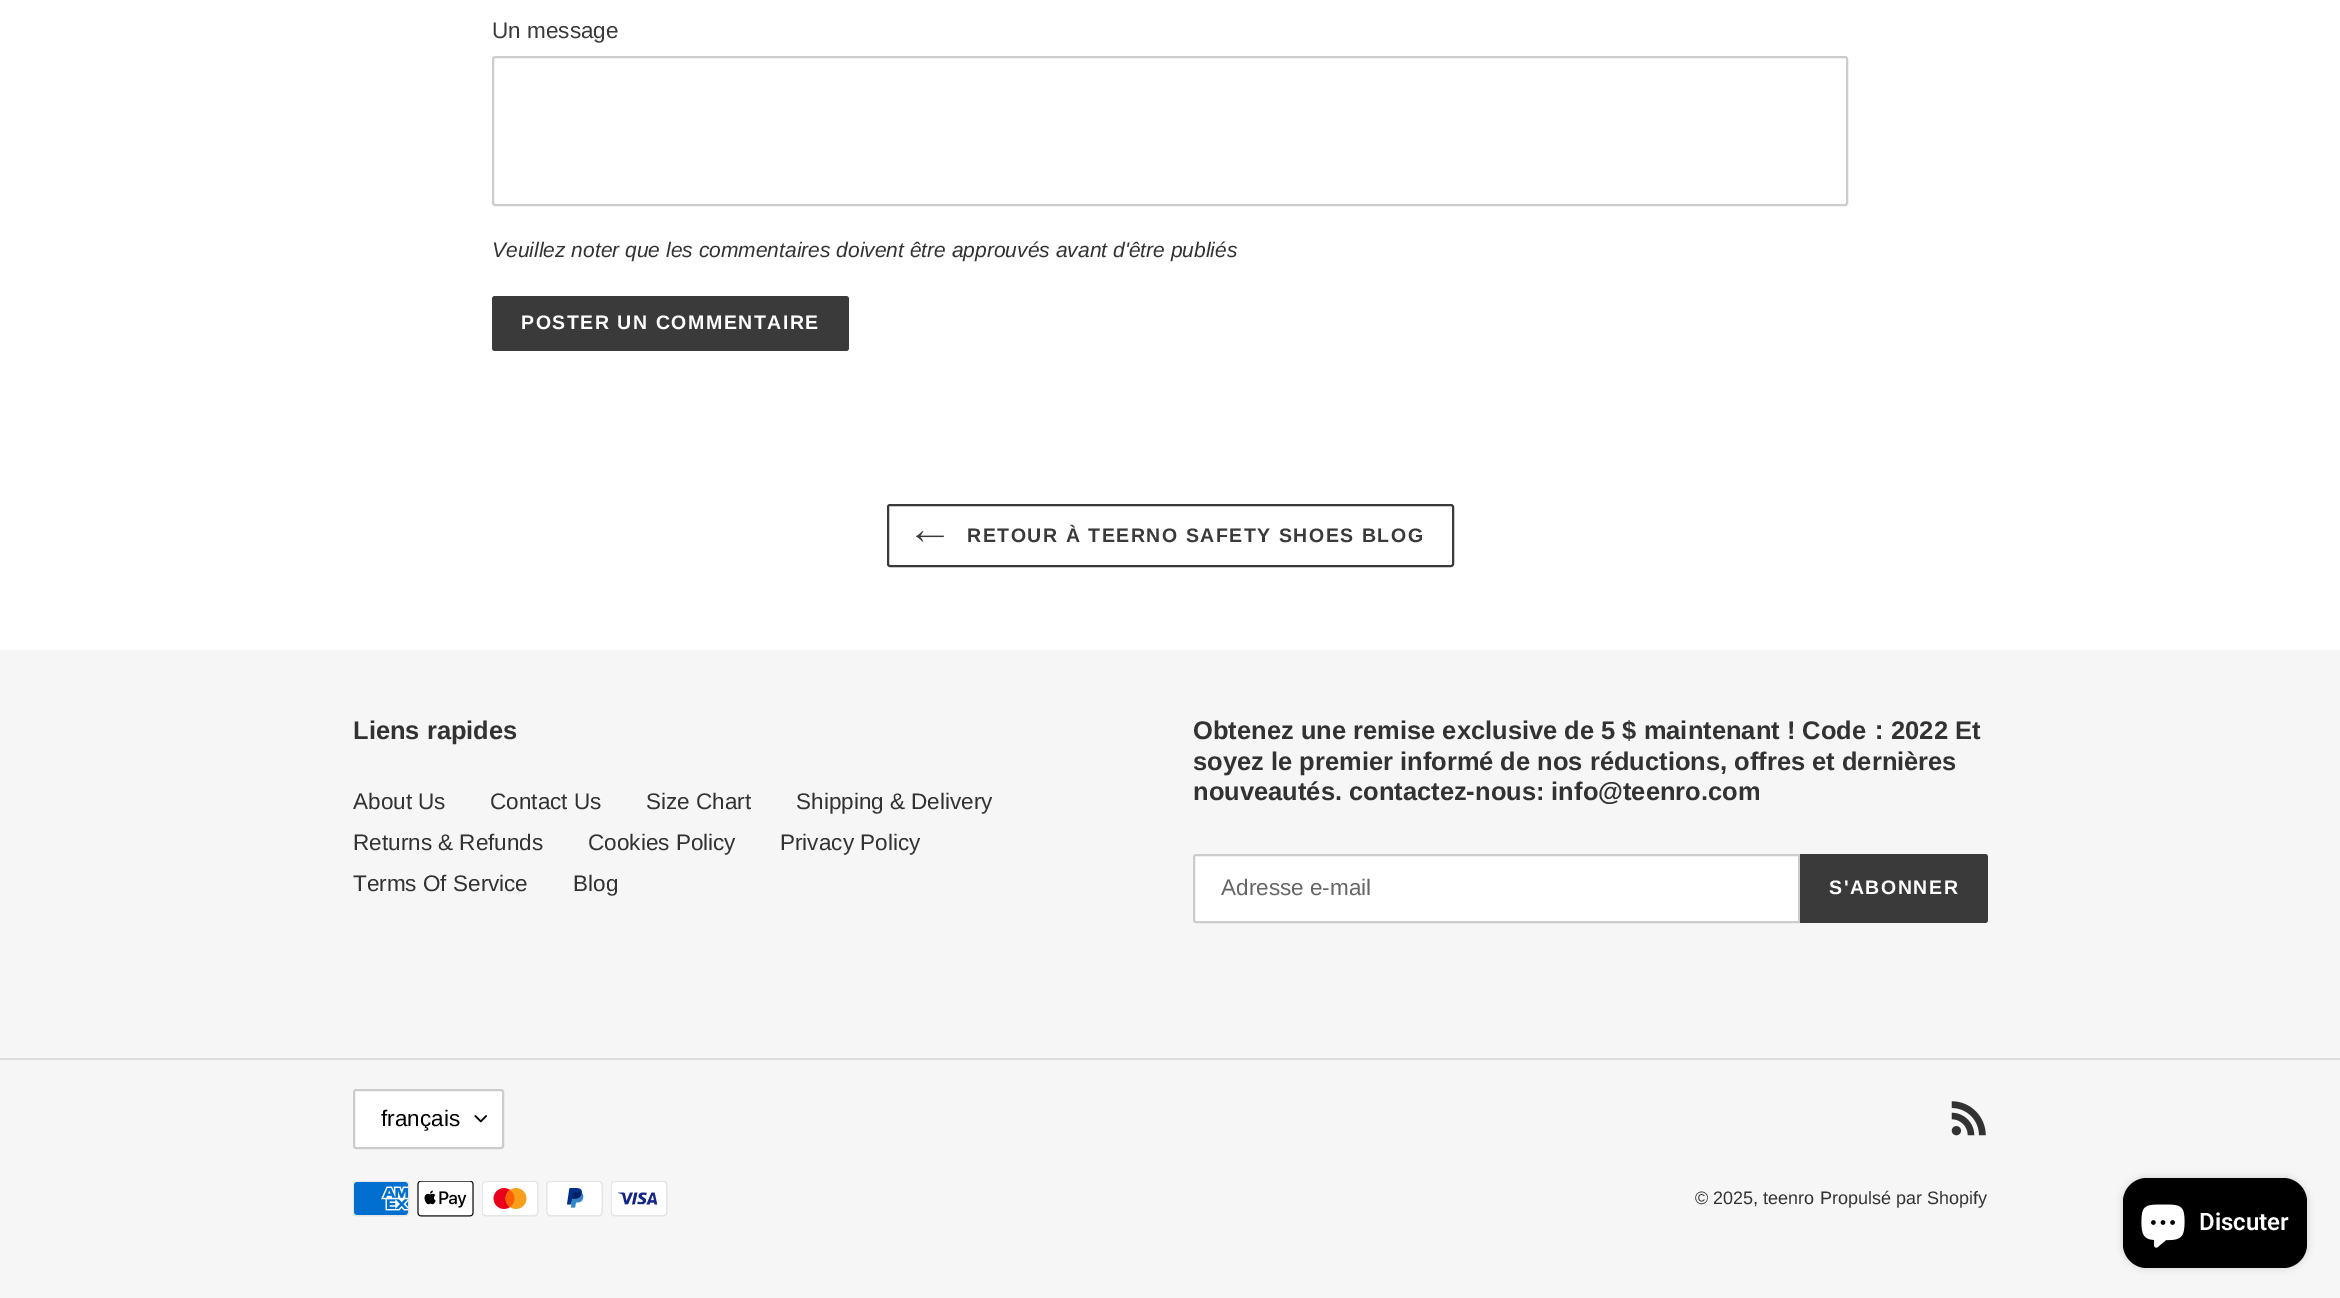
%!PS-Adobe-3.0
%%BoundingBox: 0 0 2340 1298
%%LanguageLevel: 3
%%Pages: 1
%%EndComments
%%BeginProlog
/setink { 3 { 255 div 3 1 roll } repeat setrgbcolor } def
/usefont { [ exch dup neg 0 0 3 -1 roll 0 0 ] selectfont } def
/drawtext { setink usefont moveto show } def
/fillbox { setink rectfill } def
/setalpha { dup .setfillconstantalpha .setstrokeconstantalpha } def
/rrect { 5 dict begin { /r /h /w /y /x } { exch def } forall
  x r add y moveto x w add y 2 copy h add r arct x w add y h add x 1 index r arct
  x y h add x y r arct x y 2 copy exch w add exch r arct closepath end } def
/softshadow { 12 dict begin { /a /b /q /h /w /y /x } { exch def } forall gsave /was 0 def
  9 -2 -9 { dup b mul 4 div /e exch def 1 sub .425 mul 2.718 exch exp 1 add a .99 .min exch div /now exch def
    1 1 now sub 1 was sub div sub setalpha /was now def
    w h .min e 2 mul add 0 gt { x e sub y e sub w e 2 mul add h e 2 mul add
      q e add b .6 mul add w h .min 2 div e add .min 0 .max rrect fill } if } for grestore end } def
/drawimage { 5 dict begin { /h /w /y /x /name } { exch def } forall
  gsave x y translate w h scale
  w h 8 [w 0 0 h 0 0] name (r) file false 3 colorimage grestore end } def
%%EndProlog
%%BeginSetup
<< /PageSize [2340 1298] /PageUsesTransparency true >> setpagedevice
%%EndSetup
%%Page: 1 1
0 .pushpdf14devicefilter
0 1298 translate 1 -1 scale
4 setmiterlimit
0 0 2340 1298 255 255 255 fillbox
(Un message) 492 38 /LiberationSans-Regular 22.5 58 58 58 drawtext
204 204 204 setink
2 setlinewidth
493 57 1354 148 2 rrect stroke
(Veuillez noter que les commentaires doivent être approuvés avant d'être publiés) 492 257 /LiberationSans-Italic 21 51 50 50 drawtext
58 58 58 setink
492 296 357 55 3 rrect fill
/LiberationSans-Bold 19.5 usefont
255 255 255 setink
521 329 moveto 1.55 0 (POSTER UN COMMENTAIRE) ashow
58 58 58 setink
888 505 565 61 2 rrect stroke
(assets/img1.rgb) 916 531 28 11 drawimage
967 542 moveto 1.55 0 (RETOUR À TEERNO SAFETY SHOES BLOG) ashow
0 650 2340 648 246 246 246 fillbox
(Liens rapides) 353 739 /LiberationSans-Bold 25.5 51 50 50 drawtext
(About Us) 353 809 /LiberationSans-Regular 22.5 51 50 50 drawtext
(Contact Us) 490 809 /LiberationSans-Regular 22.5 51 50 50 drawtext
(Size Chart) 646 809 /LiberationSans-Regular 22.5 51 50 50 drawtext
(Shipping & Delivery) 796 809 /LiberationSans-Regular 22.5 51 50 50 drawtext
(Returns & Refunds) 353 850 /LiberationSans-Regular 22.5 51 50 50 drawtext
(Cookies Policy) 588 850 /LiberationSans-Regular 22.5 51 50 50 drawtext
(Privacy Policy) 780 850 /LiberationSans-Regular 22.5 51 50 50 drawtext
(Terms Of Service) 353 891 /LiberationSans-Regular 22.5 51 50 50 drawtext
(Blog) 573 891 /LiberationSans-Regular 22.5 51 50 50 drawtext
(Obtenez une remise exclusive de 5 $ maintenant ! Code) 1193 739 /LiberationSans-Bold 25.5 51 50 50 drawtext
(：) 1866 739 /WenQuanYiZenHei-Bold 25.5 51 50 50 drawtext
(2022 Et) 1891 739 /LiberationSans-Bold 25.5 51 50 50 drawtext
(soyez le premier informé de nos réductions, offres et dernières) 1193 770 /LiberationSans-Bold 25.5 51 50 50 drawtext
(nouveautés. contactez-nous: info@teenro.com) 1193 800 /LiberationSans-Bold 25.5 51 50 50 drawtext
255 255 255 setink
1196 855 moveto 1799 855 lineto 1799 922 lineto 1196 922 lineto 1195 922 1194 921 1194 920 curveto 1194 857 lineto 1194 856 1195 855 1196 855 curveto closepath gsave fill grestore
204 204 204 setink
stroke
(Adresse e-mail) 1221 895 /LiberationSans-Regular 22.5 102 102 102 drawtext
58 58 58 setink
1800 854 moveto 1985 854 lineto 1986.5 854 1988 855.5 1988 857 curveto 1988 920 lineto 1988 921.5 1986.5 923 1985 923 curveto 1800 923 lineto closepath fill
/LiberationSans-Bold 19.5 usefont
255 255 255 setink
1829 894 moveto 1.55 0 (S'ABONNER) ashow
0 1058 2340 2 221 221 221 fillbox
255 255 255 setink
353 1089 151 60 3 rrect fill
(assets/img2.rgb) 474 1115 13 8 drawimage
204 204 204 setink
354 1090 149 58 2 rrect stroke
(français) 381 1126 /LiberationSans-Regular 22.5 0 0 0 drawtext
(assets/img3.rgb) 1951 1101 35 35 drawimage
(assets/img4.rgb) 353 1181 57 36 drawimage
(assets/img5.rgb) 417 1181 57 36 drawimage
(assets/img6.rgb) 482 1181 57 36 drawimage
(assets/img7.rgb) 546 1181 57 36 drawimage
(assets/img8.rgb) 611 1181 57 36 drawimage
(© 2025, teenro) 1695 1204 /LiberationSans-Regular 18 51 50 50 drawtext
(Propulsé par Shopify) 1820 1204 /LiberationSans-Regular 18 51 50 50 drawtext
0 0 0 setink
2123 1178 184 90 24 4 0.15 softshadow
2123 1178 184 90 24 rrect fill
(assets/img9.rgb) 2141 1204 44 44 drawimage
(Discuter) 2199 1230 /Roboto-SemiBold 24 255 255 255 drawtext
.poppdf14devicefilter showpage
%%EOF
